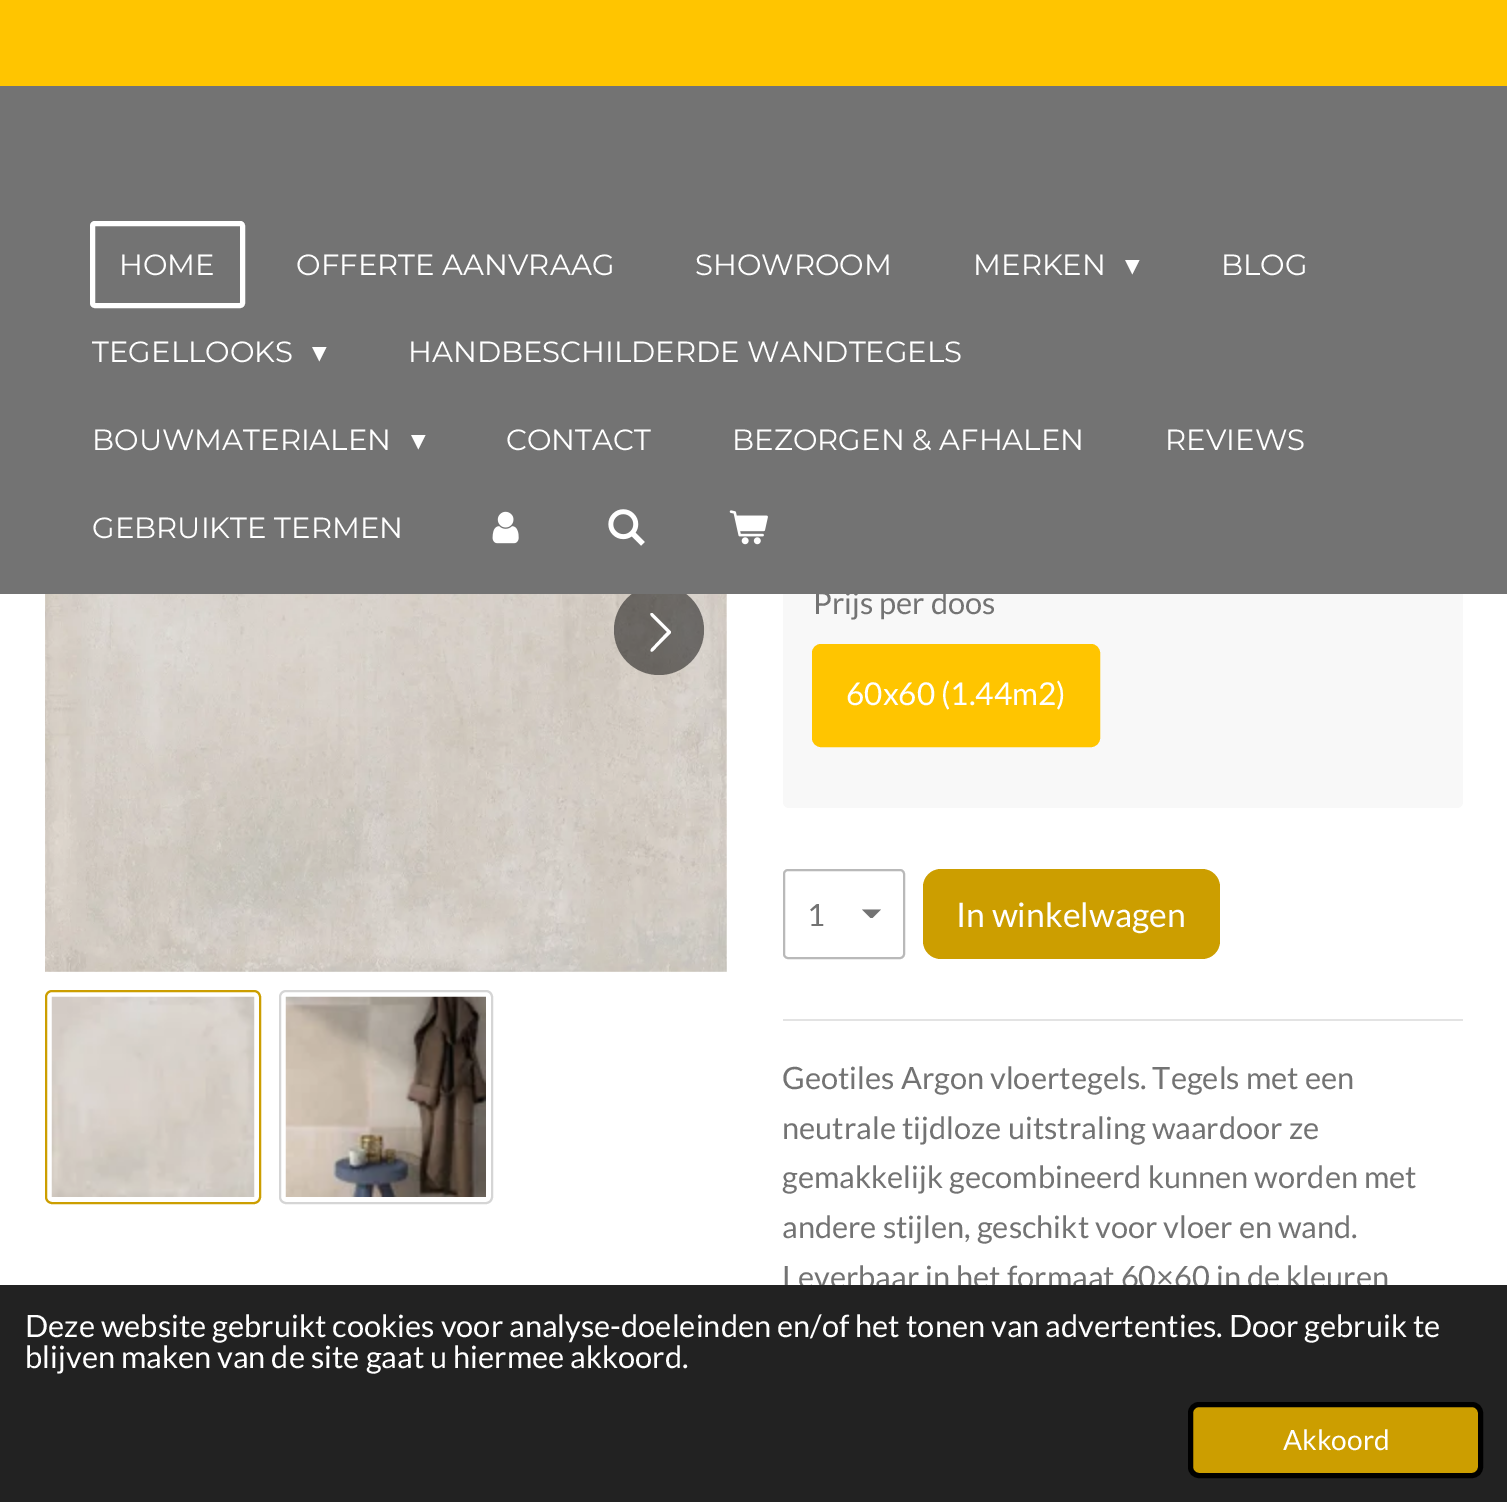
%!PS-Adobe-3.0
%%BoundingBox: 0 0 1507 1502
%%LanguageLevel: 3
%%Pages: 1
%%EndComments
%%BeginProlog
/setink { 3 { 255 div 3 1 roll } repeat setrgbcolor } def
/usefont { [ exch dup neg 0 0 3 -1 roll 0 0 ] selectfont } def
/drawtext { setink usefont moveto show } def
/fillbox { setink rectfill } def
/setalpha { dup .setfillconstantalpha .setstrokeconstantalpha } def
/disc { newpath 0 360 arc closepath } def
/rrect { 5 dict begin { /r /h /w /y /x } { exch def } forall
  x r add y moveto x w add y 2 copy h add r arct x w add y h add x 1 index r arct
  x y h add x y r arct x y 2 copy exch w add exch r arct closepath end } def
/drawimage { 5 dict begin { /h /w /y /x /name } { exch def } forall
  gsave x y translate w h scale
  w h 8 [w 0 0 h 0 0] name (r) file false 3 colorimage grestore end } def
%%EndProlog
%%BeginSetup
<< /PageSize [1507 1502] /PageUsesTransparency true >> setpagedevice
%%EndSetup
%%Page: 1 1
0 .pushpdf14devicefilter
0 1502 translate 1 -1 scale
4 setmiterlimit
0 0 1507 1502 255 255 255 fillbox
(assets/img4.rgb) 45 594 682 378 drawimage
0.5 setalpha
0 0 0 setink
659 630 45 disc fill
1 setalpha
248 248 248 setink
783 547 680 261 6 rrect fill
0 86 1507 508 115 115 115 fillbox
0 0 1507 86 255 197 0 fillbox
255 255 255 setink
5 setlinewidth
92.5 223.5 150 82 2.5 rrect stroke
(HOME) 119 275 /Montserrat-Regular 29.25 255 255 255 drawtext
(OFFERTE AANVRAAG) 296 275 /Montserrat-Regular 29.25 255 255 255 drawtext
(SHOWROOM) 695 275 /Montserrat-Regular 29.25 255 255 255 drawtext
(MERKEN) 973 275 /Montserrat-Regular 29.25 255 255 255 drawtext
(▾) 1125 275 /DejaVuSans-Regular 29.25 255 255 255 drawtext
(BLOG) 1221 275 /Montserrat-Regular 29.25 255 255 255 drawtext
(TEGELLOOKS) 92 362 /Montserrat-Regular 29.25 255 255 255 drawtext
(▾) 312 362 /DejaVuSans-Regular 29.25 255 255 255 drawtext
(HANDBESCHILDERDE WANDTEGELS) 408 362 /Montserrat-Regular 29.25 255 255 255 drawtext
(BOUWMATERIALEN) 92 450 /Montserrat-Regular 29.25 255 255 255 drawtext
(▾) 411 450 /DejaVuSans-Regular 29.25 255 255 255 drawtext
(CONTACT) 506 450 /Montserrat-Regular 29.25 255 255 255 drawtext
(BEZORGEN & AFHALEN) 732 450 /Montserrat-Regular 29.25 255 255 255 drawtext
(REVIEWS) 1165 450 /Montserrat-Regular 29.25 255 255 255 drawtext
(GEBRUIKTE TERMEN) 92 538 /Montserrat-Regular 29.25 255 255 255 drawtext
(assets/img1.rgb) 492 511 27 33 drawimage
(assets/img2.rgb) 608 509 37 37 drawimage
(assets/img3.rgb) 729 510 39 35 drawimage
651 649 moveto 667 632 lineto 653.5 618.5 lineto 653 617.5 648 614 651.5 613 curveto 652.5 613 lineto 671 631.5 lineto 671 632 lineto 671 633 lineto 656 648 lineto 655.5 648.5 651.5 654 650.5 650.5 curveto closepath fill
204 158 0 setink
2 setlinewidth
46 991 214 212 6 rrect stroke
(assets/img5.rgb) 51 996 204 201 drawimage
213 213 213 setink
280 991 212 212 6 rrect stroke
(assets/img6.rgb) 285 996 201 201 drawimage
(Prijs per doos) 813 614 /Lato-Regular 30.8 115 115 115 drawtext
255 197 0 setink
813 645 286 101 8 rrect gsave fill grestore
stroke
(60x60 \(1.44m2\)) 846 705 /Lato-Regular 31.5 255 255 255 drawtext
gsave
862 909 20 9 rectclip
115 115 115 setink
871.5 919 moveto 862 909.5 lineto 881 909.5 lineto closepath fill
grestore
185 185 185 setink
784 870 120 88 4 rrect stroke
(1) 807 926 /Lato-Regular 30.8 115 115 115 drawtext
204 158 0 setink
923 869 297 90 18 rrect fill
(In winkelwagen) 956 927 /Lato-Regular 33.75 255 255 255 drawtext
783 1019 680 2 227 227 227 fillbox
(Geotiles Argon vloertegels. Tegels met een) 782 1089 /Lato-Regular 30.8 115 115 115 drawtext
(neutrale tijdloze uitstraling waardoor ze) 782 1139 /Lato-Regular 30.8 115 115 115 drawtext
(gemakkelijk gecombineerd kunnen worden met) 782 1188 /Lato-Regular 30.8 115 115 115 drawtext
(andere stijlen, geschikt voor vloer en wand.) 782 1238 /Lato-Regular 30.8 115 115 115 drawtext
(Leverbaar in het formaat 60×60 in de kleuren) 782 1288 /Lato-Regular 30.8 115 115 115 drawtext
0 1285 1507 217 34 34 34 fillbox
(Deze website gebruikt cookies voor analyse-doeleinden en/of het tonen van advertenties. Door gebruik te) 25 1337 /Lato-Regular 30.8 255 255 255 drawtext
(blijven maken van de site gaat u hiermee akkoord.) 25 1368 /Lato-Regular 30.8 255 255 255 drawtext
204 158 0 setink
1190.5 1404.5 290 71 8.5 rrect gsave fill grestore
0 0 0 setink
5 setlinewidth
stroke
(Akkoord) 1283 1450 /Lato-Regular 28 255 255 255 drawtext
.poppdf14devicefilter showpage
%%EOF
